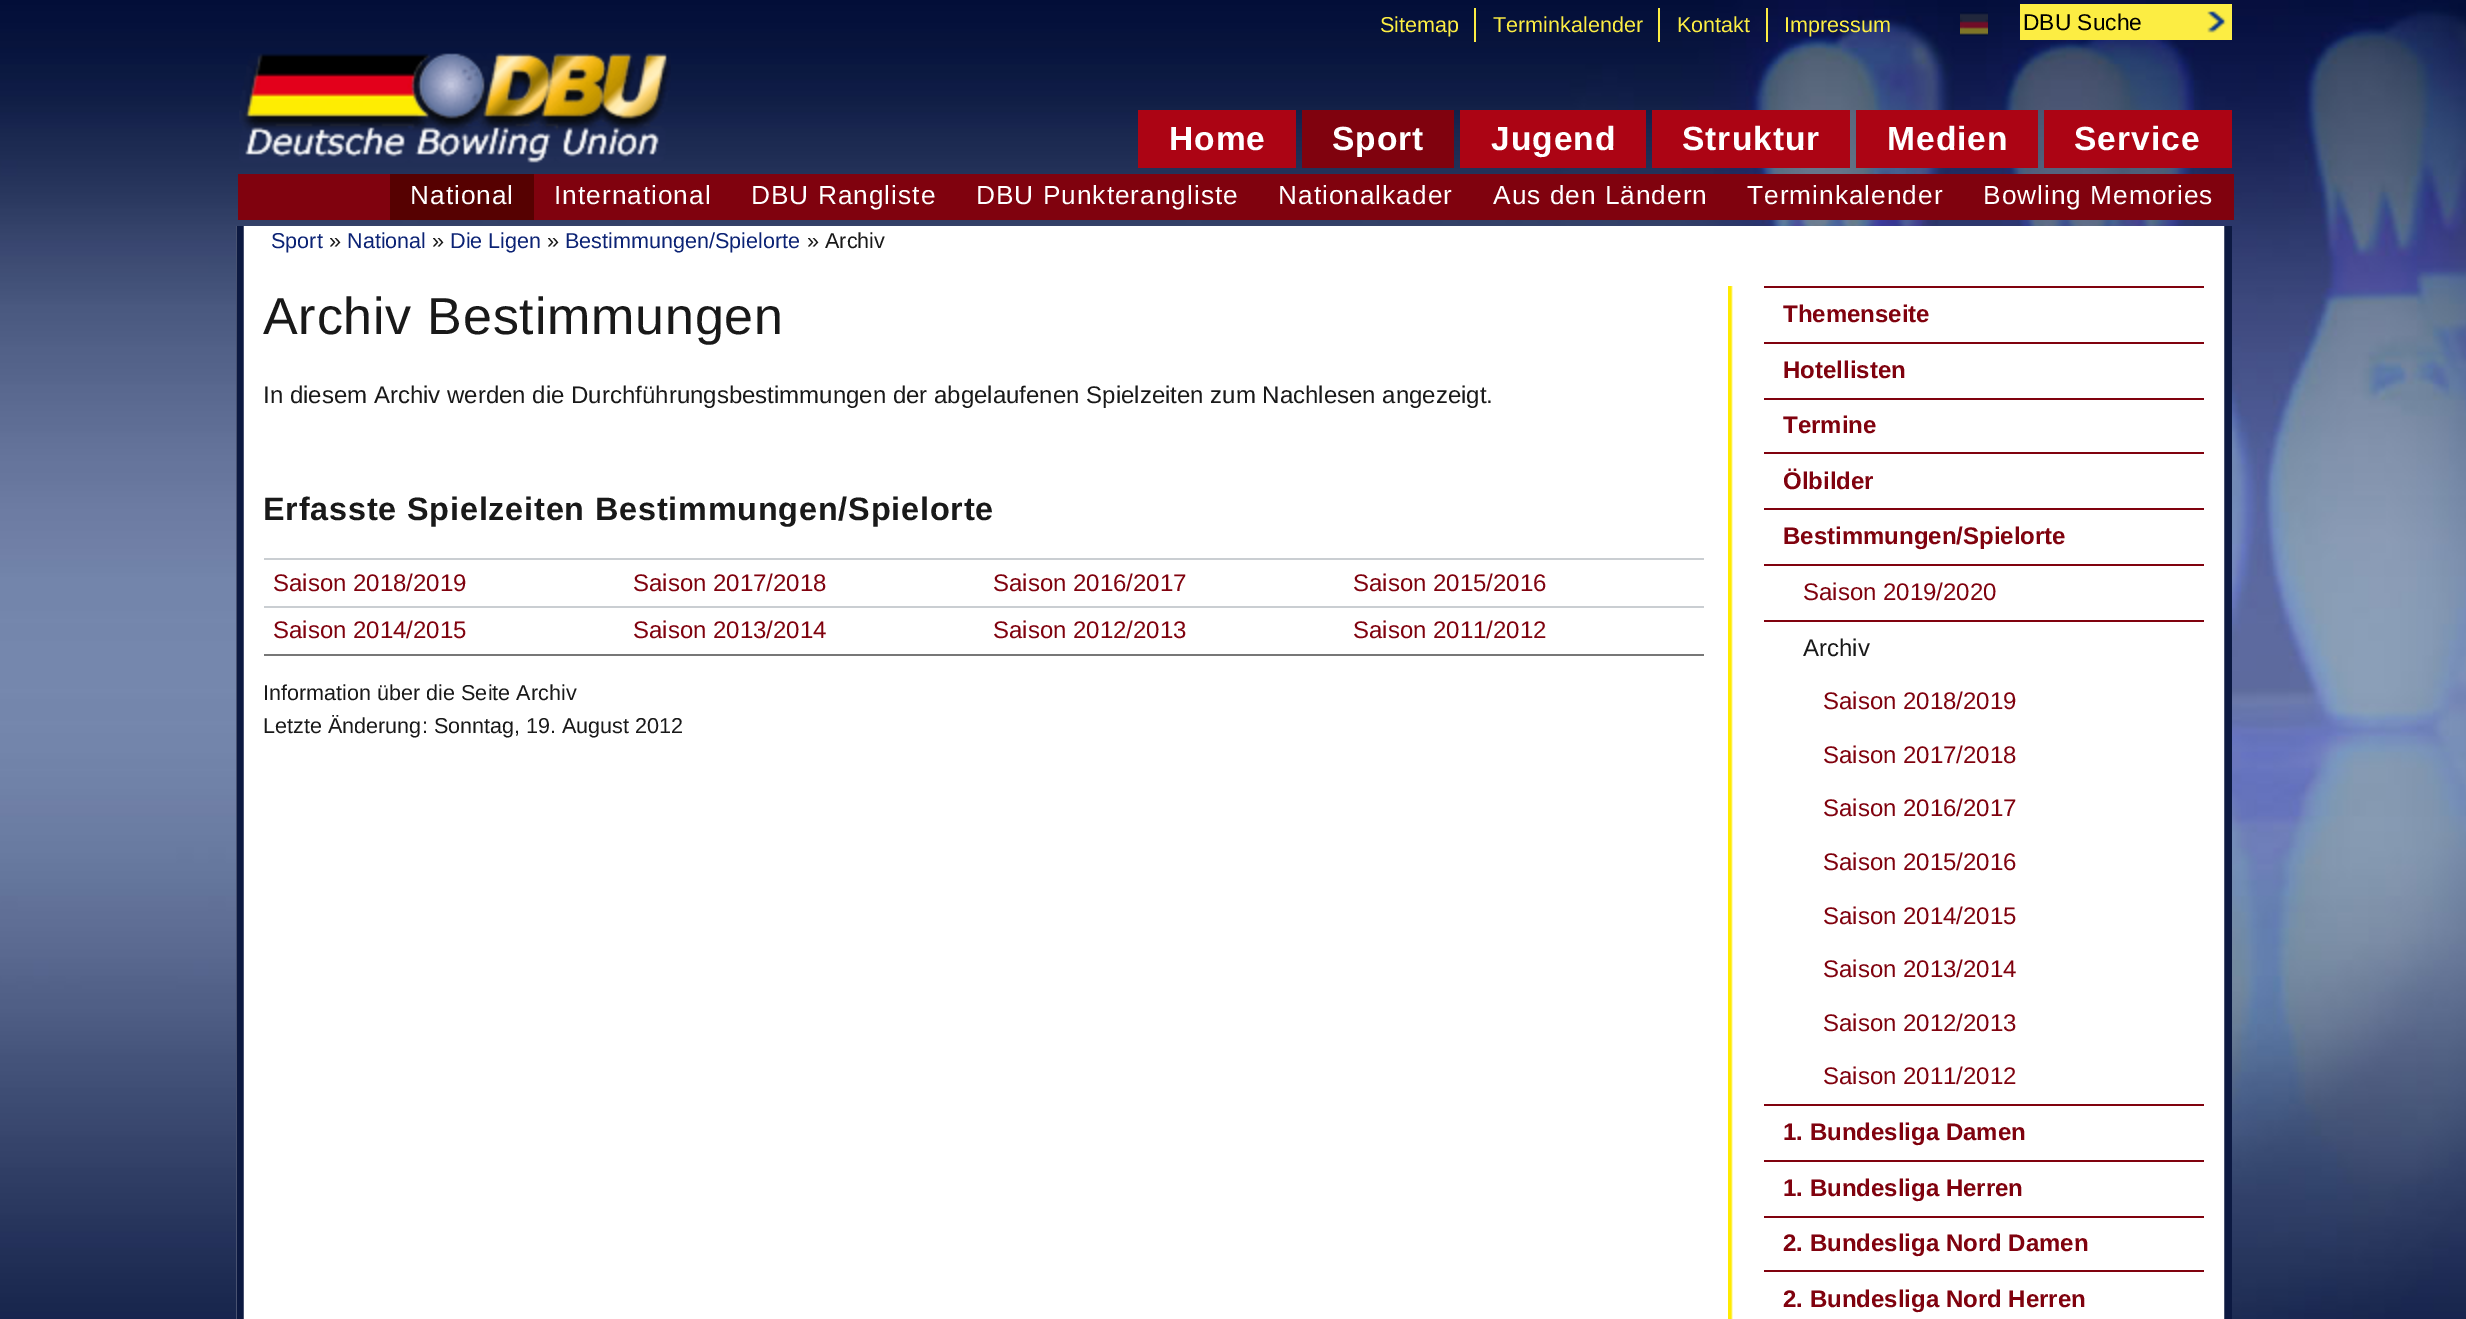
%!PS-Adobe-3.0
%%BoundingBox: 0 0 2466 1319
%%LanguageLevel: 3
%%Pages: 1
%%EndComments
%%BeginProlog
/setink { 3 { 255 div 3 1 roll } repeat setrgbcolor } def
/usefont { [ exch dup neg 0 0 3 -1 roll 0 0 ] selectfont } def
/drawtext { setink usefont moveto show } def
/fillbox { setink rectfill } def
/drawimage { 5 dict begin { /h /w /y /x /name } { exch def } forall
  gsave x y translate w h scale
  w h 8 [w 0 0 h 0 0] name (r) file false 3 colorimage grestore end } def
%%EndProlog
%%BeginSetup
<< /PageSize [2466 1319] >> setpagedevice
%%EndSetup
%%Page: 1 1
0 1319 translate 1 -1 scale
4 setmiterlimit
0 0 2466 1319 255 255 255 fillbox
(assets/img1.rgb) 0 0 2466 1319 drawimage
(assets/img2.rgb) 236 226 1996 1093 drawimage
(assets/img3.rgb) 236 0 1996 226 drawimage
1474 8 2 34 252 237 67 fillbox
(Sitemap) 1380 32 /LiberationSans-Regular 21.6 252 237 67 drawtext
1658 8 2 34 252 237 67 fillbox
(Terminkalender) 1493 32 /LiberationSans-Regular 21.6 252 237 67 drawtext
1766 8 2 34 252 237 67 fillbox
(Kontakt) 1677 32 /LiberationSans-Regular 21.6 252 237 67 drawtext
(Impressum) 1784 32 /LiberationSans-Regular 21.6 252 237 67 drawtext
(assets/img4.rgb) 1960 12 28 24 drawimage
2020 4 187 36 252 237 67 fillbox
(assets/img5.rgb) 2207 4 25 36 drawimage
(DBU Suche) 2023 30 /LiberationSans-Regular 22.75 0 0 0 drawtext
(assets/img6.rgb) 239 53 432 110 drawimage
1460 110 186 58 172 4 20 fillbox
/LiberationSans-Bold 33.5 usefont
255 255 255 setink
1491 150 moveto 1 0 (Jugend) ashow
1652 110 198 58 172 4 20 fillbox
255 255 255 setink
1682 150 moveto 1 0 (Struktur) ashow
1856 110 182 58 172 4 20 fillbox
255 255 255 setink
1887 150 moveto 1 0 (Medien) ashow
2044 110 188 58 172 4 20 fillbox
255 255 255 setink
2074 150 moveto 1 0 (Service) ashow
1302 110 152 58 128 2 14 fillbox
255 255 255 setink
1332 150 moveto 1 0 (Sport) ashow
238 174 1996 46 128 2 14 fillbox
390 174 144 46 86 1 1 fillbox
/LiberationSans-Regular 26.25 usefont
255 255 255 setink
410 204 moveto 1 0 (National) ashow
554 204 moveto 1 0 (International) ashow
751 204 moveto 1 0 (DBU Rangliste) ashow
976 204 moveto 1 0 (DBU Punkterangliste) ashow
1278 204 moveto 1 0 (Nationalkader) ashow
1493 204 moveto 1 0 (Aus den Ländern) ashow
1747 204 moveto 1 0 (Terminkalender) ashow
1983 204 moveto 1 0 (Bowling Memories) ashow
1138 110 158 58 172 4 20 fillbox
/LiberationSans-Bold 33.5 usefont
255 255 255 setink
1169 150 moveto 1 0 (Home) ashow
244 226 1980 1093 255 255 255 fillbox
(Sport) 271 248 /LiberationSans-Regular 21.6 12 35 117 drawtext
(») 329 248 /LiberationSans-Regular 21.6 25 25 25 drawtext
(National) 347 248 /LiberationSans-Regular 21.6 12 35 117 drawtext
(») 432 248 /LiberationSans-Regular 21.6 25 25 25 drawtext
(Die Ligen) 450 248 /LiberationSans-Regular 21.6 12 35 117 drawtext
(») 547 248 /LiberationSans-Regular 21.6 25 25 25 drawtext
(Bestimmungen/Spielorte) 565 248 /LiberationSans-Regular 21.6 12 35 117 drawtext
(» Archiv) 807 248 /LiberationSans-Regular 21.6 25 25 25 drawtext
(assets/img7.rgb) 1728 286 5 1033 drawimage
/LiberationSans-Regular 52 usefont
263 334 moveto 0.8 0 (Archiv Bestimmungen) ashow
(In diesem Archiv werden die Durchführungsbestimmungen der abgelaufenen Spielzeiten zum Nachlesen angezeigt.) 263 403 /LiberationSans-Regular 24 25 25 25 drawtext
/LiberationSans-Bold 32.4 usefont
263 520 moveto 0.8 0 (Erfasste Spielzeiten Bestimmungen/Spielorte) ashow
264 654 1440 2 119 119 119 fillbox
264 558 1440 2 202 206 210 fillbox
(Saison 2018/2019) 273 591 /LiberationSans-Regular 24 128 2 14 drawtext
(Saison 2017/2018) 633 591 /LiberationSans-Regular 24 128 2 14 drawtext
(Saison 2016/2017) 993 591 /LiberationSans-Regular 24 128 2 14 drawtext
(Saison 2015/2016) 1353 591 /LiberationSans-Regular 24 128 2 14 drawtext
264 606 1440 2 202 206 210 fillbox
(Saison 2014/2015) 273 638 /LiberationSans-Regular 24 128 2 14 drawtext
(Saison 2013/2014) 633 638 /LiberationSans-Regular 24 128 2 14 drawtext
(Saison 2012/2013) 993 638 /LiberationSans-Regular 24 128 2 14 drawtext
(Saison 2011/2012) 1353 638 /LiberationSans-Regular 24 128 2 14 drawtext
(Information über die Seite Archiv) 263 700 /LiberationSans-Regular 21.6 25 25 25 drawtext
(Letzte Änderung: Sonntag, 19. August 2012) 263 733 /LiberationSans-Regular 21.6 25 25 25 drawtext
1764 286 440 2 128 2 14 fillbox
(Themenseite) 1783 322 /LiberationSans-Bold 24 128 2 14 drawtext
1764 342 440 2 128 2 14 fillbox
(Hotellisten) 1783 378 /LiberationSans-Bold 24 128 2 14 drawtext
1764 398 440 2 128 2 14 fillbox
(Termine) 1783 433 /LiberationSans-Bold 24 128 2 14 drawtext
1764 452 440 2 128 2 14 fillbox
(Ölbilder) 1783 489 /LiberationSans-Bold 24 128 2 14 drawtext
1764 508 440 2 128 2 14 fillbox
(Bestimmungen/Spielorte) 1783 544 /LiberationSans-Bold 24 128 2 14 drawtext
1764 564 440 2 128 2 14 fillbox
(Saison 2019/2020) 1803 600 /LiberationSans-Regular 24 128 2 14 drawtext
1764 620 440 2 128 2 14 fillbox
(Archiv) 1803 656 /LiberationSans-Regular 24 25 25 25 drawtext
(Saison 2018/2019) 1823 709 /LiberationSans-Regular 24 128 2 14 drawtext
(Saison 2017/2018) 1823 763 /LiberationSans-Regular 24 128 2 14 drawtext
(Saison 2016/2017) 1823 816 /LiberationSans-Regular 24 128 2 14 drawtext
(Saison 2015/2016) 1823 870 /LiberationSans-Regular 24 128 2 14 drawtext
(Saison 2014/2015) 1823 924 /LiberationSans-Regular 24 128 2 14 drawtext
(Saison 2013/2014) 1823 977 /LiberationSans-Regular 24 128 2 14 drawtext
(Saison 2012/2013) 1823 1031 /LiberationSans-Regular 24 128 2 14 drawtext
(Saison 2011/2012) 1823 1084 /LiberationSans-Regular 24 128 2 14 drawtext
1764 1104 440 2 128 2 14 fillbox
(1. Bundesliga Damen) 1783 1140 /LiberationSans-Bold 24 128 2 14 drawtext
1764 1160 440 2 128 2 14 fillbox
(1. Bundesliga Herren) 1783 1196 /LiberationSans-Bold 24 128 2 14 drawtext
1764 1216 440 2 128 2 14 fillbox
(2. Bundesliga Nord Damen) 1783 1251 /LiberationSans-Bold 24 128 2 14 drawtext
1764 1270 440 2 128 2 14 fillbox
(2. Bundesliga Nord Herren) 1783 1307 /LiberationSans-Bold 24 128 2 14 drawtext
showpage
%%EOF
